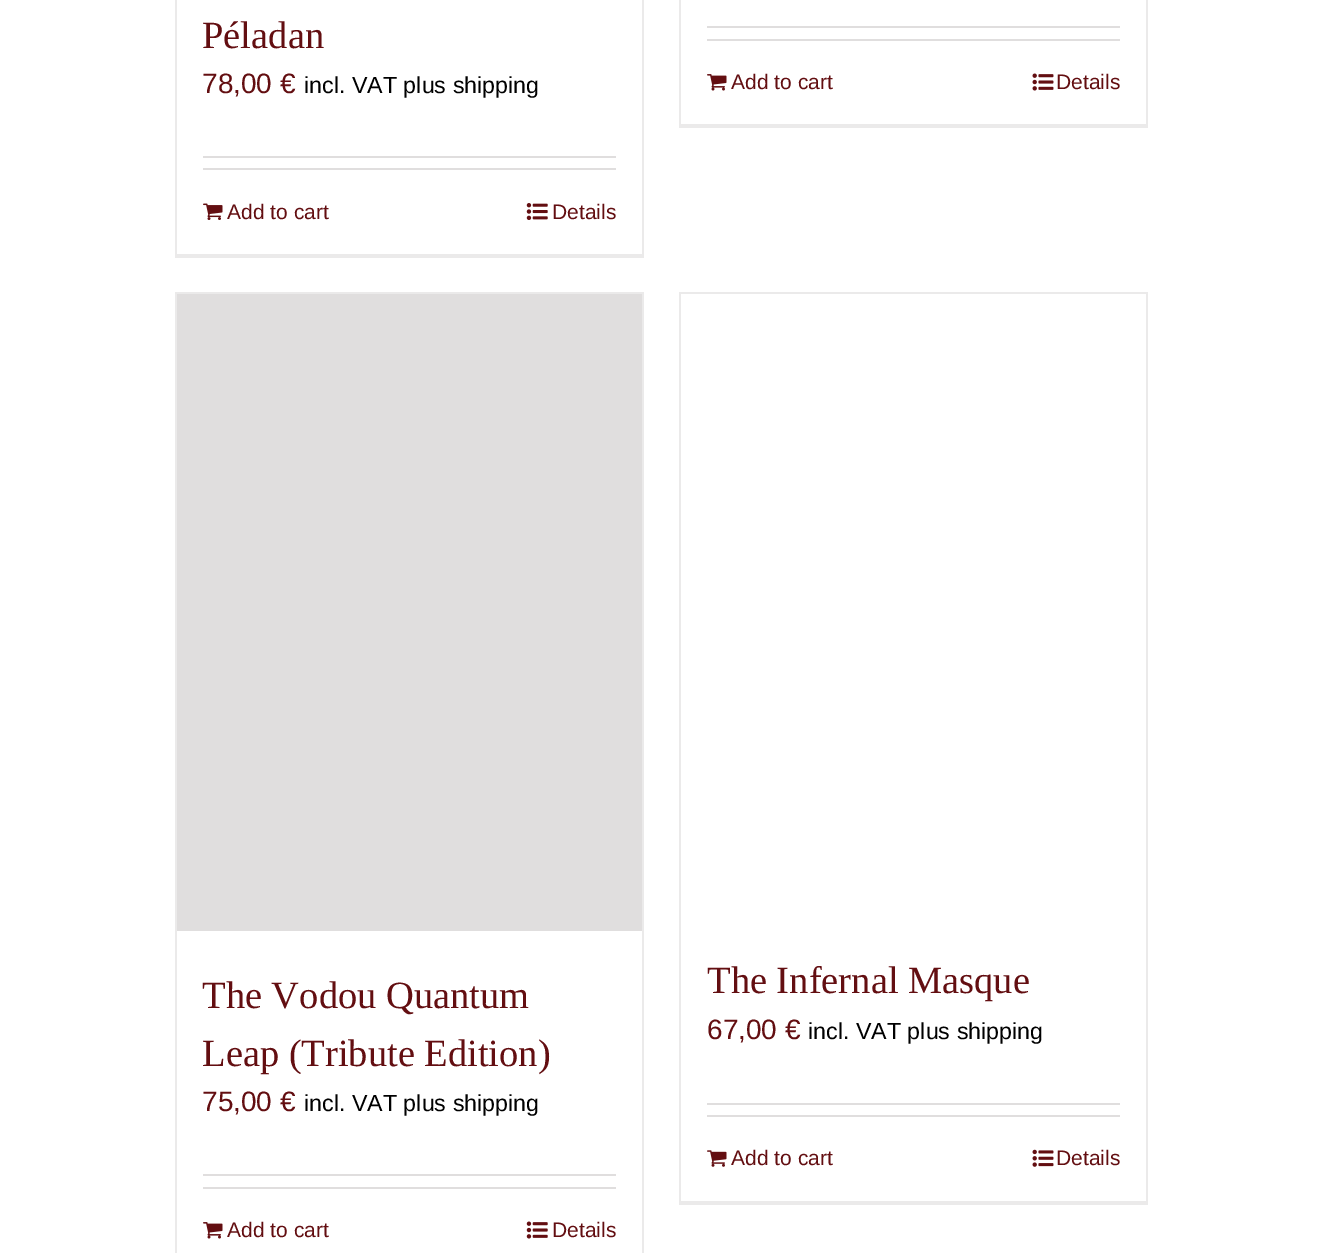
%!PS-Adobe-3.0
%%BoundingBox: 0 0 1322 1253
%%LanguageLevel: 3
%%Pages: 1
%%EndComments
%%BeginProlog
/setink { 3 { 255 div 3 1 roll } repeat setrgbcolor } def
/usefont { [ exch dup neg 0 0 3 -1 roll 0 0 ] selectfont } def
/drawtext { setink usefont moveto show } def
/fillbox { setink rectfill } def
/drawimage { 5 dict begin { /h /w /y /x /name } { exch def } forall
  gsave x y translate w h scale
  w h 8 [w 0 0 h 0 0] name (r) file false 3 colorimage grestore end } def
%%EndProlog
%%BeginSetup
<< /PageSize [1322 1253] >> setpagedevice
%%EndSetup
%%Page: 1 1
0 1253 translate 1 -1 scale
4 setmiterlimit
0 0 1322 1253 255 255 255 fillbox
642 0 2 257 235 234 234 fillbox
175 254 469 4 235 234 234 fillbox
175 0 2 257 235 234 234 fillbox
(Péladan) 202 48 /LiberationSerif-Regular 38.5 99 14 17 drawtext
(78,00 €) 202 93 /LiberationSans-Regular 28 99 14 17 drawtext
(incl. VAT plus shipping) 304 93 /LiberationSans-Regular 23.25 0 0 0 drawtext
203 156 413 2 224 222 222 fillbox
203 168 413 2 224 222 222 fillbox
(assets/img1.rgb) 203 203 20 17 drawimage
(Add to cart) 227 219 /LiberationSans-Regular 21 99 14 17 drawtext
(assets/img2.rgb) 526 203 22 17 drawimage
(Details) 552 219 /LiberationSans-Regular 21 99 14 17 drawtext
1146 0 2 128 235 234 234 fillbox
679 124 469 4 235 234 234 fillbox
679 0 2 128 235 234 234 fillbox
707 26 413 2 224 222 222 fillbox
707 39 413 2 224 222 222 fillbox
(assets/img3.rgb) 707 74 20 17 drawimage
(Add to cart) 731 89 /LiberationSans-Regular 21 99 14 17 drawtext
(assets/img4.rgb) 1032 73 22 18 drawimage
(Details) 1056 89 /LiberationSans-Regular 21 99 14 17 drawtext
175 292 469 2 235 234 234 fillbox
642 292 2 961 235 234 234 fillbox
175 292 2 961 235 234 234 fillbox
177 294 465 637 224 222 222 fillbox
(The Vodou Quantum) 202 1008 /LiberationSerif-Regular 38.5 99 14 17 drawtext
(Leap \(Tribute Edition\)) 202 1066 /LiberationSerif-Regular 38.5 99 14 17 drawtext
(75,00 €) 202 1111 /LiberationSans-Regular 28 99 14 17 drawtext
(incl. VAT plus shipping) 304 1111 /LiberationSans-Regular 23.25 0 0 0 drawtext
203 1174 413 2 224 222 222 fillbox
203 1187 413 2 224 222 222 fillbox
(assets/img3.rgb) 203 1222 20 17 drawimage
(Add to cart) 227 1237 /LiberationSans-Regular 21 99 14 17 drawtext
(assets/img5.rgb) 526 1221 22 18 drawimage
(Details) 552 1237 /LiberationSans-Regular 21 99 14 17 drawtext
679 292 469 2 235 234 234 fillbox
1146 292 2 912 235 234 234 fillbox
679 1201 469 4 235 234 234 fillbox
679 292 2 912 235 234 234 fillbox
(The Infernal Masque) 707 993 /LiberationSerif-Regular 38.5 99 14 17 drawtext
(67,00 €) 707 1039 /LiberationSans-Regular 28 99 14 17 drawtext
(incl. VAT plus shipping) 808 1039 /LiberationSans-Regular 23.25 0 0 0 drawtext
707 1103 413 2 224 222 222 fillbox
707 1115 413 2 224 222 222 fillbox
(assets/img6.rgb) 707 1150 20 17 drawimage
(Add to cart) 731 1165 /LiberationSans-Regular 21 99 14 17 drawtext
(assets/img7.rgb) 1032 1149 22 18 drawimage
(Details) 1056 1165 /LiberationSans-Regular 21 99 14 17 drawtext
showpage
%%EOF
